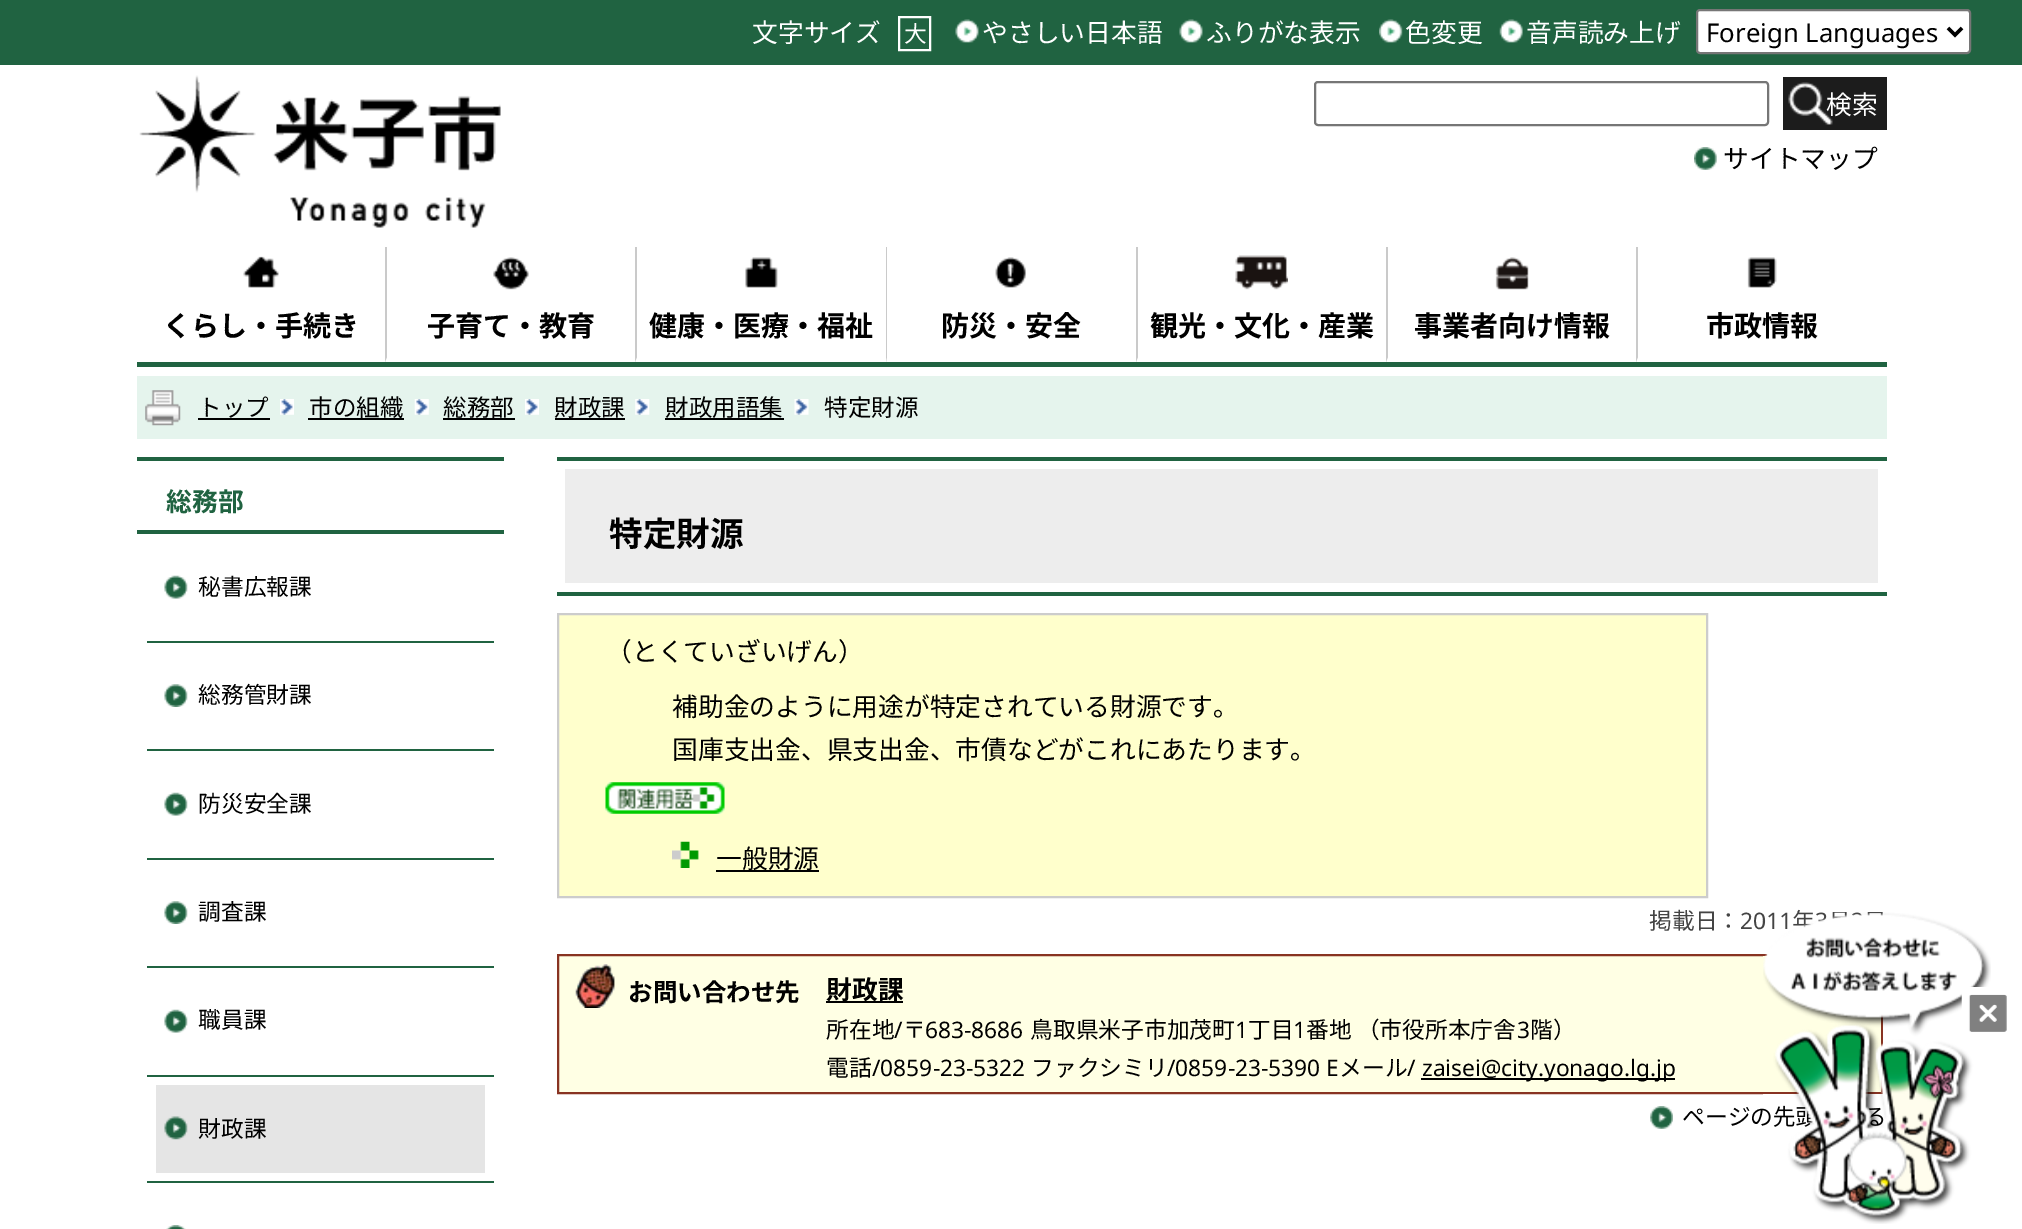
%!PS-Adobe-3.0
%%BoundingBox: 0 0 2022 1229
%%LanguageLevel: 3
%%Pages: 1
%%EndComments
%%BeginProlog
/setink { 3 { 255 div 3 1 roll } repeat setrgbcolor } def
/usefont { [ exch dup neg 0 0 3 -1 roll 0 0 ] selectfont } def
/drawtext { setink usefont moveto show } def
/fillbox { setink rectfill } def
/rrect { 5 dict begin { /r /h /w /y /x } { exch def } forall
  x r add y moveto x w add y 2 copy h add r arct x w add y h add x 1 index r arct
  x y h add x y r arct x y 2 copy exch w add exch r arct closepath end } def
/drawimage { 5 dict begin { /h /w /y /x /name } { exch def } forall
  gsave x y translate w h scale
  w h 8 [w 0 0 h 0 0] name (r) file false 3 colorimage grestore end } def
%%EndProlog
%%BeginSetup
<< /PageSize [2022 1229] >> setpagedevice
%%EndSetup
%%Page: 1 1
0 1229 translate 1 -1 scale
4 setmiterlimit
0 0 2022 1229 255 255 255 fillbox
0 0 2022 65 32 99 65 fillbox
(文字サイズ) 752 42 /NotoSansJP-Regular 25.75 255 255 255 drawtext
2 setlinewidth
899 17 31 33 rectstroke
(大) 904 42 /NotoSansJP-Regular 22.75 255 255 255 drawtext
(assets/img1.rgb) 955 19 24 24 drawimage
(やさしい日本語) 982 42 /NotoSansJP-Regular 25.75 255 255 255 drawtext
(assets/img2.rgb) 1179 19 24 24 drawimage
(ふりがな表示) 1206 42 /NotoSansJP-Regular 25.75 255 255 255 drawtext
(assets/img3.rgb) 1379 19 24 24 drawimage
(色変更) 1405 42 /NotoSansJP-Regular 25.75 255 255 255 drawtext
(assets/img4.rgb) 1499 19 24 24 drawimage
(音声読み上げ) 1526 42 /NotoSansJP-Regular 25.75 255 255 255 drawtext
1697 10 273 43 3 rrect gsave fill grestore
118 118 118 setink
stroke
0 0 0 setink
3.5 setlinewidth
1948 28 moveto 1955 35 lineto 1962 28 lineto stroke
(Foreign Languages) 1706 42 /NotoSans-Regular 25.75 0 0 0 drawtext
(assets/img5.rgb) 139 75 362 153 drawimage
118 118 118 setink
2 setlinewidth
1315 82 453 43 3 rrect stroke
1783 77 104 53 28 28 28 fillbox
(assets/img6.rgb) 1788 82 45 43 drawimage
(検索) 1826 114 /NotoSansJP-Regular 25.75 255 255 255 drawtext
(assets/img7.rgb) 1694 147 23 23 drawimage
(サイトマップ) 1723 168 /NotoSansJP-Regular 25.75 0 0 0 drawtext
137 362 1750 5 32 99 65 fillbox
(assets/img8.rgb) 243 256 36 32 drawimage
(くらし・手続き) 163 336 /NotoSansJP-Bold 28 0 0 0 drawtext
202 202 202 setink
385 362 moveto 385 247 lineto 387 247 lineto 387 357 lineto closepath fill
(assets/img9.rgb) 493 257 36 33 drawimage
(子育て・教育) 427 336 /NotoSansJP-Bold 28 0 0 0 drawtext
202 202 202 setink
635 362 moveto 635 247 lineto 637 247 lineto 637 357 lineto closepath fill
(assets/img10.rgb) 745 257 33 31 drawimage
(健康・医療・福祉) 649 336 /NotoSansJP-Bold 28 0 0 0 drawtext
202 202 202 setink
886 362 moveto 886 247 lineto 887 247 lineto 887 357 lineto closepath fill
(assets/img11.rgb) 995 257 31 31 drawimage
(防災・安全) 941 336 /NotoSansJP-Bold 28 0 0 0 drawtext
202 202 202 setink
1136 362 moveto 1136 247 lineto 1138 247 lineto 1138 357 lineto closepath fill
(assets/img12.rgb) 1235 255 53 35 drawimage
(観光・文化・産業) 1150 336 /NotoSansJP-Bold 28 0 0 0 drawtext
202 202 202 setink
1386 362 moveto 1386 247 lineto 1388 247 lineto 1388 357 lineto closepath fill
(assets/img13.rgb) 1495 257 34 33 drawimage
(事業者向け情報) 1414 336 /NotoSansJP-Bold 28 0 0 0 drawtext
202 202 202 setink
1636 362 moveto 1636 247 lineto 1638 247 lineto 1638 357 lineto closepath fill
(assets/img14.rgb) 1747 257 30 31 drawimage
(市政情報) 1706 336 /NotoSansJP-Bold 28 0 0 0 drawtext
137 376 1750 63 229 244 237 fillbox
(assets/img15.rgb) 145 390 36 36 drawimage
(トップ) 198 416 /NotoSansJP-Regular 23.5 0 0 0 drawtext
198 418 72 2 0 0 0 fillbox
(assets/img16.rgb) 280 399 14 16 drawimage
(市の組織) 309 416 /NotoSansJP-Regular 23.5 0 0 0 drawtext
308 418 96 2 0 0 0 fillbox
(assets/img17.rgb) 414 399 15 16 drawimage
(総務部) 443 416 /NotoSansJP-Regular 23.5 0 0 0 drawtext
443 418 72 2 0 0 0 fillbox
(assets/img16.rgb) 525 399 14 16 drawimage
(財政課) 554 416 /NotoSansJP-Regular 23.5 0 0 0 drawtext
555 418 70 2 0 0 0 fillbox
(assets/img18.rgb) 635 399 15 16 drawimage
(財政用語集) 665 416 /NotoSansJP-Regular 23.5 0 0 0 drawtext
665 418 119 2 0 0 0 fillbox
(assets/img19.rgb) 794 399 15 16 drawimage
(特定財源) 824 416 /NotoSansJP-Regular 23.5 0 0 0 drawtext
137 457 367 4 32 99 65 fillbox
137 530 367 4 32 99 65 fillbox
(総務部) 166 511 /NotoSansJP-Bold 25.75 32 99 65 drawtext
147 641 347 2 32 99 65 fillbox
(assets/img20.rgb) 164 575 24 24 drawimage
(秘書広報課) 198 595 /NotoSansJP-Regular 22.75 0 0 0 drawtext
147 749 347 2 32 99 65 fillbox
(assets/img21.rgb) 164 684 24 23 drawimage
(総務管財課) 198 703 /NotoSansJP-Regular 22.75 0 0 0 drawtext
147 858 347 2 32 99 65 fillbox
(assets/img20.rgb) 164 792 24 24 drawimage
(防災安全課) 198 812 /NotoSansJP-Regular 22.75 0 0 0 drawtext
147 966 347 2 32 99 65 fillbox
(assets/img21.rgb) 164 901 24 23 drawimage
(調査課) 198 920 /NotoSansJP-Regular 22.75 0 0 0 drawtext
147 1075 347 2 32 99 65 fillbox
(assets/img20.rgb) 164 1009 24 24 drawimage
(職員課) 198 1028 /NotoSansJP-Regular 22.75 0 0 0 drawtext
147 1181 347 2 32 99 65 fillbox
156 1085 329 88 229 229 229 fillbox
(assets/img22.rgb) 164 1116 24 24 drawimage
(財政課) 198 1137 /NotoSansJP-Regular 22.75 0 0 0 drawtext
(assets/img23.rgb) 166 1225 20 4 drawimage
557 457 1330 4 32 99 65 fillbox
557 592 1330 4 32 99 65 fillbox
565 469 1313 114 237 237 237 fillbox
(特定財源) 609 546 /NotoSansJP-Bold 33.5 0 0 0 drawtext
255 255 204 setink
558 614 moveto 1707 614 lineto 1707 897 lineto 558 897 lineto closepath gsave fill grestore
204 204 204 setink
stroke
(（とくていざいげん）) 606 661 /NotoSansJP-Regular 25.75 0 0 0 drawtext
(補助金のように用途が特定されている財源です。) 672 716 /NotoSansJP-Regular 25.75 0 0 0 drawtext
(国庫支出金、県支出金、市債などがこれにあたります。) 672 759 /NotoSansJP-Regular 25.75 0 0 0 drawtext
(assets/img24.rgb) 605 782 120 32 drawimage
(assets/img25.rgb) 672 841 27 27 drawimage
716 870 103 2 0 0 0 fillbox
(一般財源) 716 868 /NotoSansJP-Regular 25.75 0 0 0 drawtext
(掲載日：) 1649 929 /NotoSansJP-Regular 22.75 68 68 68 drawtext
(2011) 1740 929 /NotoSans-Regular 22.75 68 68 68 drawtext
(年) 1792 929 /NotoSansJP-Regular 22.75 68 68 68 drawtext
255 255 228 setink
558 955 moveto 1882 955 lineto 1882 1093 lineto 558 1093 lineto closepath gsave fill grestore
136 51 34 setink
stroke
(assets/img26.rgb) 575 964 40 44 drawimage
(お問い合わせ先) 628 1001 /NotoSansJP-Bold 24.5 0 0 0 drawtext
826 1001 77 2 0 0 0 fillbox
(財政課) 826 999 /NotoSansJP-Bold 25.75 0 0 0 drawtext
(所在地) 826 1038 /NotoSansJP-Regular 22.75 0 0 0 drawtext
(/) 894 1038 /NotoSans-Regular 22.75 0 0 0 drawtext
(〒) 903 1038 /NotoSansJP-Regular 22.75 0 0 0 drawtext
(683-8686) 925 1038 /NotoSans-Regular 22.75 0 0 0 drawtext
(鳥取県米子市加茂町) 1030 1038 /NotoSansJP-Regular 22.75 0 0 0 drawtext
(1) 1235 1038 /NotoSans-Regular 22.75 0 0 0 drawtext
(丁目) 1248 1038 /NotoSansJP-Regular 22.75 0 0 0 drawtext
(1) 1293 1038 /NotoSans-Regular 22.75 0 0 0 drawtext
(番地 （市役所本庁舎) 1306 1038 /NotoSansJP-Regular 22.75 0 0 0 drawtext
(3) 1517 1038 /NotoSans-Regular 22.75 0 0 0 drawtext
(階）) 1530 1038 /NotoSansJP-Regular 22.75 0 0 0 drawtext
(電話) 826 1076 /NotoSansJP-Regular 22.75 0 0 0 drawtext
(/0859-23-5322) 872 1076 /NotoSans-Regular 22.75 0 0 0 drawtext
(ファクシミリ) 1031 1076 /NotoSansJP-Regular 22.75 0 0 0 drawtext
(/0859-23-5390 E) 1167 1076 /NotoSans-Regular 22.75 0 0 0 drawtext
(メール) 1339 1076 /NotoSansJP-Regular 22.75 0 0 0 drawtext
(/) 1407 1076 /NotoSans-Regular 22.75 0 0 0 drawtext
1421 1078 254 2 0 0 0 fillbox
(zaisei@city.yonago.lg.jp) 1422 1076 /NotoSans-Regular 22.75 0 0 0 drawtext
(assets/img27.rgb) 1650 1106 23 23 drawimage
(ページの先頭) 1682 1125 /NotoSansJP-Regular 22.75 0 0 0 drawtext
(る) 1864 1125 /NotoSansJP-Regular 22.75 0 0 0 drawtext
(assets/img29.rgb) 1763 912 228 312 drawimage
(assets/img28.rgb) 1961 987 46 45 drawimage
showpage
%%EOF
